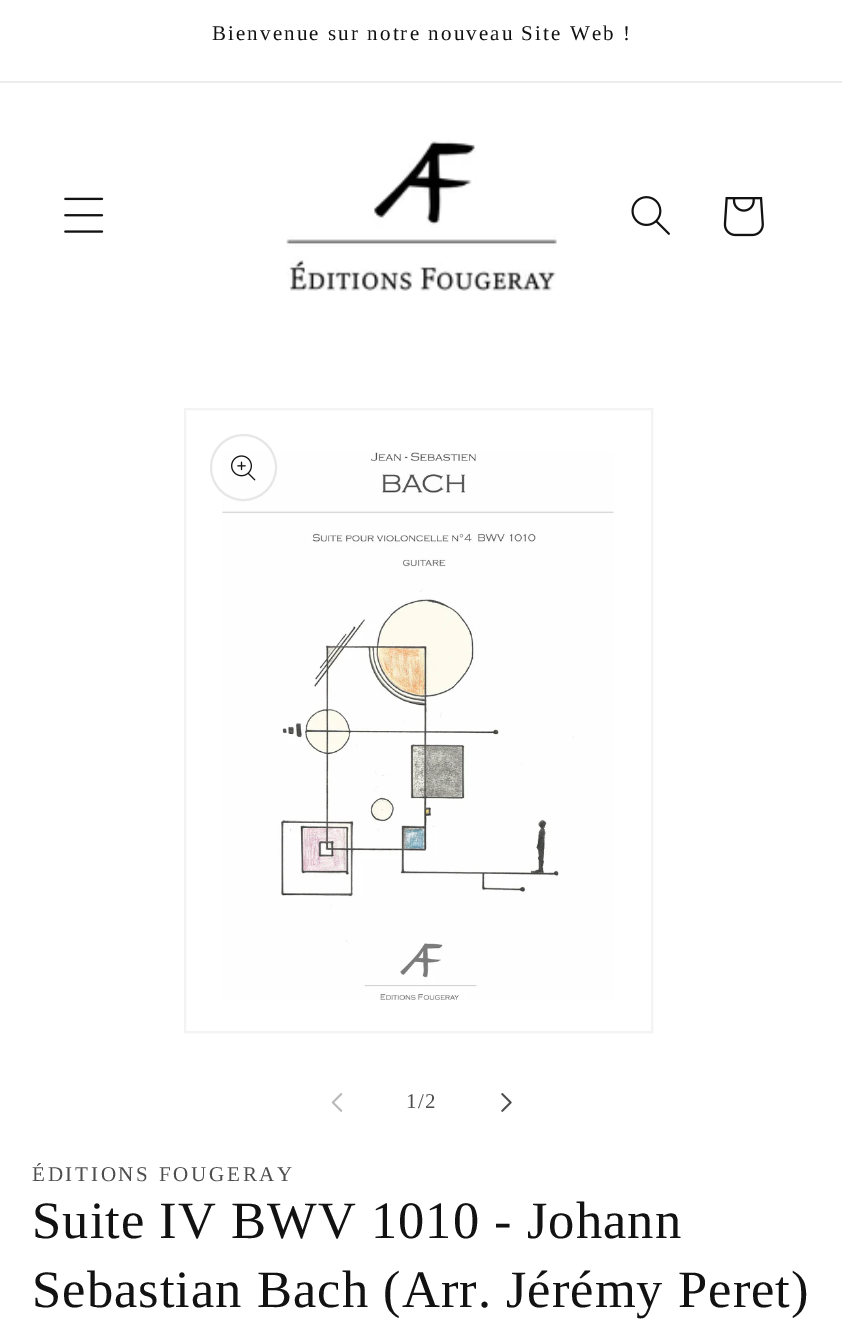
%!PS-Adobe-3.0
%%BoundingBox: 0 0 842 1320
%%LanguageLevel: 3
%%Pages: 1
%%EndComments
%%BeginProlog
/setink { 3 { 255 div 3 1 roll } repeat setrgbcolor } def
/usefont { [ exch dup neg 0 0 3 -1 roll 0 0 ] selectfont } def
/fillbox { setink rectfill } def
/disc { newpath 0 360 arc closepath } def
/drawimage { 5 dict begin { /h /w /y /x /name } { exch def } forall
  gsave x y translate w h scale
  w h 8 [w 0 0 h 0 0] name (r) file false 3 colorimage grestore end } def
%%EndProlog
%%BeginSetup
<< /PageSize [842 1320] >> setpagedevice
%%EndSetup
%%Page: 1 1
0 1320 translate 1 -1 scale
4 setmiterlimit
0 0 842 1320 255 255 255 fillbox
0 81 842 2 236 236 236 fillbox
/LiberationSerif-Regular 21 usefont
18 18 18 setink
212 40 moveto 2.1 0 (Bienvenue sur notre nouveau Site Web !) ashow
(assets/img1.rgb) 64 197 40 36 drawimage
(assets/img2.rgb) 286 139 271 152 drawimage
(assets/img3.rgb) 631 196 39 39 drawimage
(assets/img4.rgb) 723 197 41 40 drawimage
243 243 243 setink
2 setlinewidth
185 409 467 623 rectstroke
(assets/img6.rgb) 222 452 392 548 drawimage
231 231 231 setink
243.5 467.5 32.5 disc stroke
(assets/img5.rgb) 231 455 25 26 drawimage
(assets/img7.rgb) 331 1093 12 19 drawimage
77 77 77 setink
406 1108 moveto 1.5 0 (1/2) ashow
(assets/img8.rgb) 501 1093 11 19 drawimage
32 1181 moveto 2.75 0 (ÉDITIONS FOUGERAY) ashow
/LiberationSerif-Regular 52.5 usefont
18 18 18 setink
32 1238 moveto 1.05 0 (Suite IV BWV 1010 - Johann) ashow
32 1307 moveto 1.05 0 (Sebastian Bach \(Arr. Jérémy Peret\)) ashow
showpage
%%EOF
